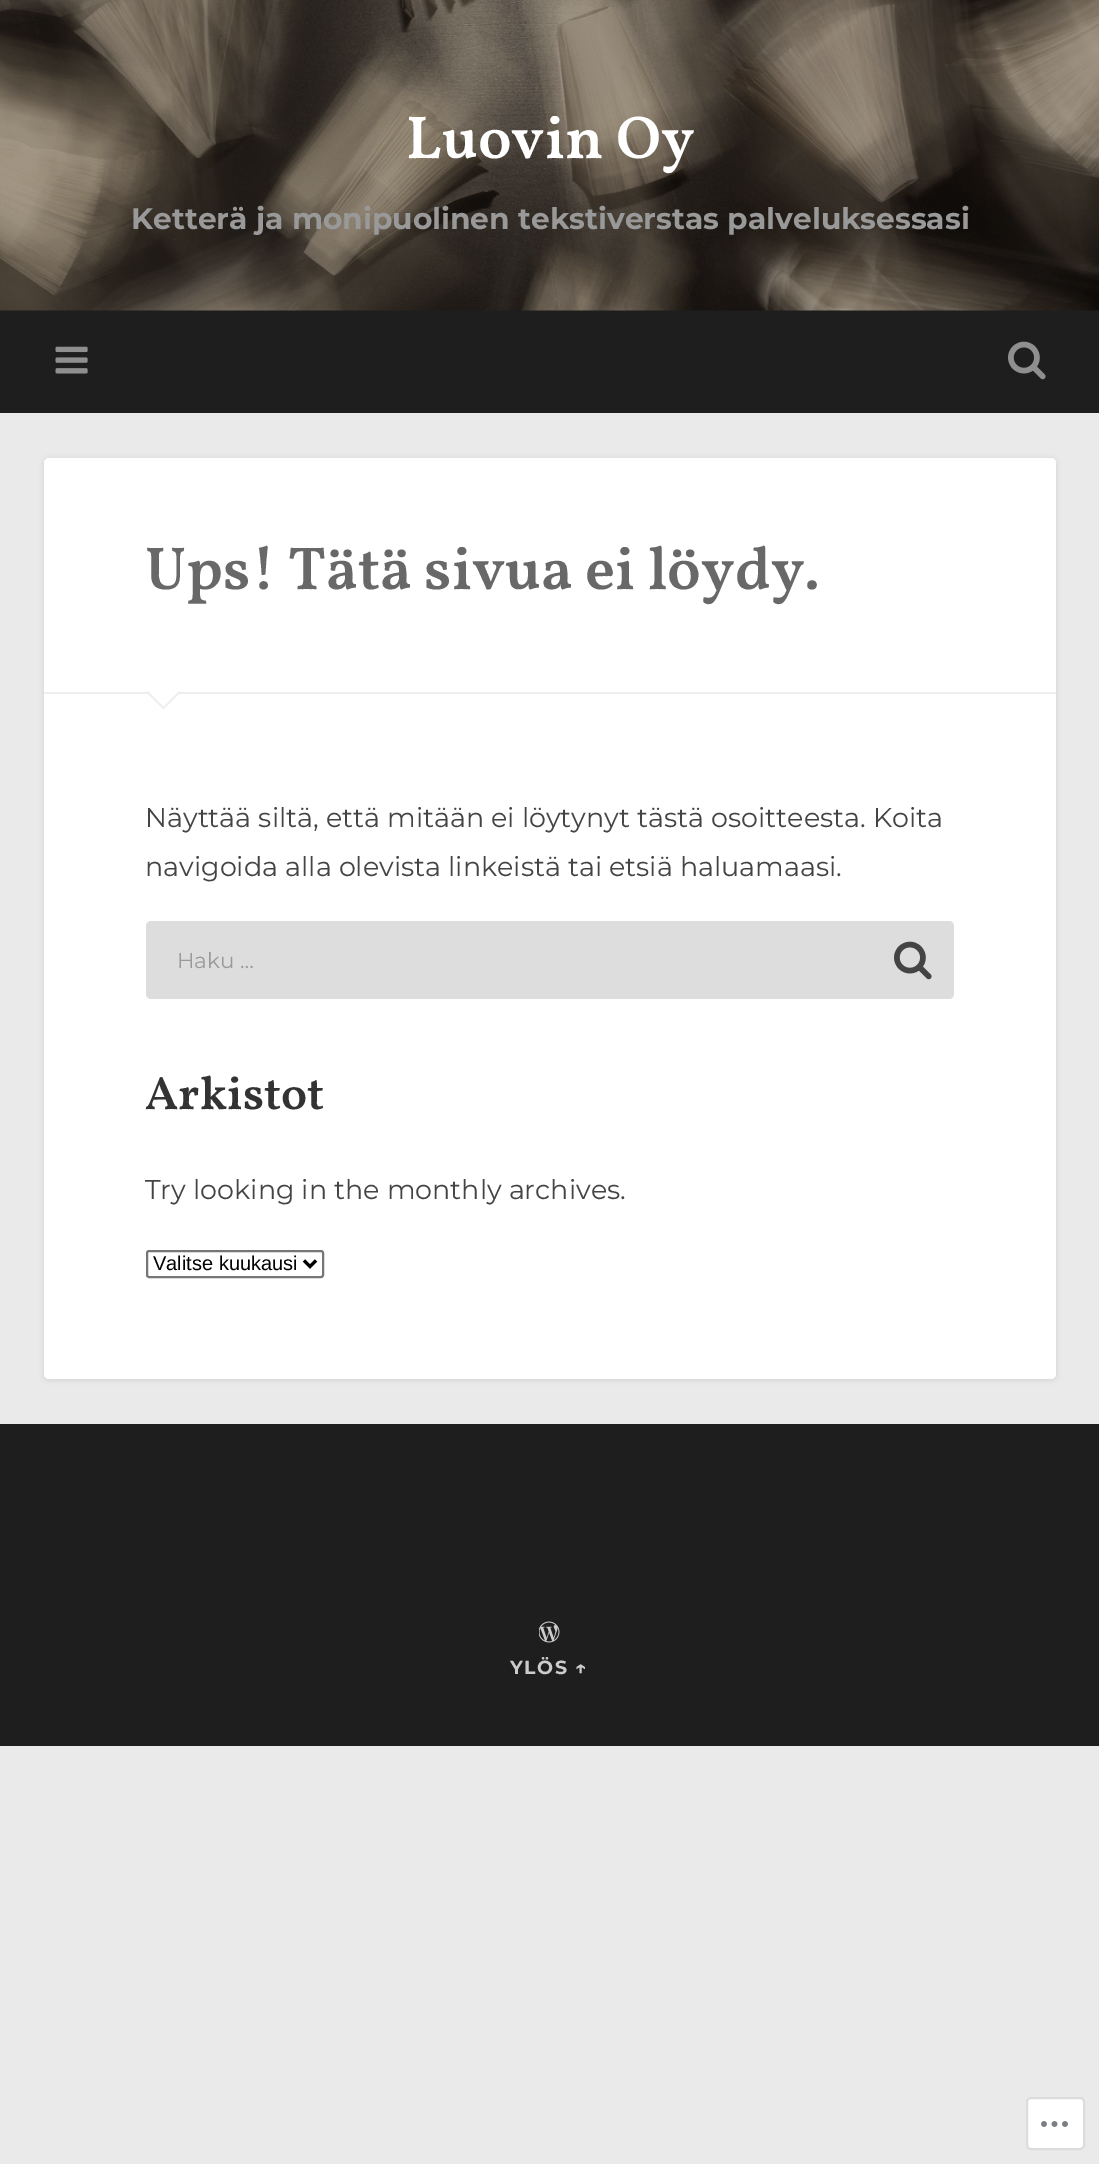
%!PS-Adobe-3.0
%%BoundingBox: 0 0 1099 2164
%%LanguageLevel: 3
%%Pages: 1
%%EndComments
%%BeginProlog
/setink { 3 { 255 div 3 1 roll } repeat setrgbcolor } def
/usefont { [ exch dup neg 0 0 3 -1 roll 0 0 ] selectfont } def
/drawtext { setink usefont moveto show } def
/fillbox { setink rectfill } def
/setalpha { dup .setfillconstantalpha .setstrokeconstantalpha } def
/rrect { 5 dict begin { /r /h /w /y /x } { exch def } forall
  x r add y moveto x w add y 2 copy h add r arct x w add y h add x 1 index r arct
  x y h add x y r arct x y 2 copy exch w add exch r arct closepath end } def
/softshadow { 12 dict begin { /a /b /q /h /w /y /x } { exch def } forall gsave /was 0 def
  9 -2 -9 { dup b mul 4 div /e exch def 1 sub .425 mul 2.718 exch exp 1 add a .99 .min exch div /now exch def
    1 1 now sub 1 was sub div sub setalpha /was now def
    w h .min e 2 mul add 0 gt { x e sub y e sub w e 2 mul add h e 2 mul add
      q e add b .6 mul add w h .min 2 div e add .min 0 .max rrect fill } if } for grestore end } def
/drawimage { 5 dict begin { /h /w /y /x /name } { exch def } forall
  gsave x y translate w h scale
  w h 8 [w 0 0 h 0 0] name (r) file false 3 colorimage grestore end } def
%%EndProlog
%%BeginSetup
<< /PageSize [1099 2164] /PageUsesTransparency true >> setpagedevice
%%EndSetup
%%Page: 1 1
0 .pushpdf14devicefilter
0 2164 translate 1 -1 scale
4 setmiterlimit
0 0 1099 2164 234 234 234 fillbox
0 310 1099 103 30 30 30 fillbox
(assets/img1.rgb) 0 0 1099 311 drawimage
(Luovin Oy) 406 158 /Vollkorn-SemiBold 60.75 255 255 255 drawtext
(Ketterä ja monipuolinen tekstiverstas palveluksessasi) 131 229 /Montserrat-Bold 29.7 153 153 153 drawtext
(assets/img2.rgb) 55 346 33 28 drawimage
(assets/img3.rgb) 1008 341 38 39 drawimage
0 0 0 setink
44 459 1012 921 5 3 0.1 softshadow
255 255 255 setink
44 458 1012 921 5 rrect fill
44 692 1012 2 238 238 238 fillbox
(Ups! Tätä sivua ei löydy.) 145 589 /Vollkorn-SemiBold 60.75 104 104 104 drawtext
238 238 238 setink
145.5 691.5 moveto 181.5 691.5 lineto 163.5 709.5 lineto closepath fill
255 255 255 setink
147 690 moveto 180 690 lineto 163.5 706.5 lineto closepath fill
(Näyttää siltä, että mitään ei löytynyt tästä osoitteesta. Koita) 145 827 /Montserrat-Regular 27 68 68 68 drawtext
(navigoida alla olevista linkeistä tai etsiä haluamaasi.) 145 876 /Montserrat-Regular 27 68 68 68 drawtext
221 221 221 setink
146 921 808 78 5 rrect fill
(Haku …) 177 968 /Montserrat-Regular 21.5 153 153 153 drawtext
(assets/img4.rgb) 894 941 38 39 drawimage
(Arkistot) 145 1109 /Vollkorn-SemiBold 47 51 51 51 drawtext
(Try looking in the monthly archives.) 145 1199 /Montserrat-Regular 27 68 68 68 drawtext
118 118 118 setink
2 setlinewidth
147 1251 176 26 2 rrect stroke
0 0 0 setink
3 setlinewidth
304 1260.5 moveto 310 1266.5 lineto 316 1260.5 lineto stroke
(Valitse kuukausi) 153 1270 /LiberationSans-Regular 20 0 0 0 drawtext
0 1424 1099 322 30 30 30 fillbox
(assets/img5.rgb) 539 1621 21 22 drawimage
/Montserrat-Bold 19 usefont
204 204 204 setink
510 1674 moveto 1.5 0 (YLÖS ↑) ashow
255 255 255 setink
1027 2098 57 51 4 rrect gsave fill grestore
220 220 222 setink
2 setlinewidth
stroke
(assets/img6.rgb) 1041 2121 27 6 drawimage
.poppdf14devicefilter showpage
%%EOF
